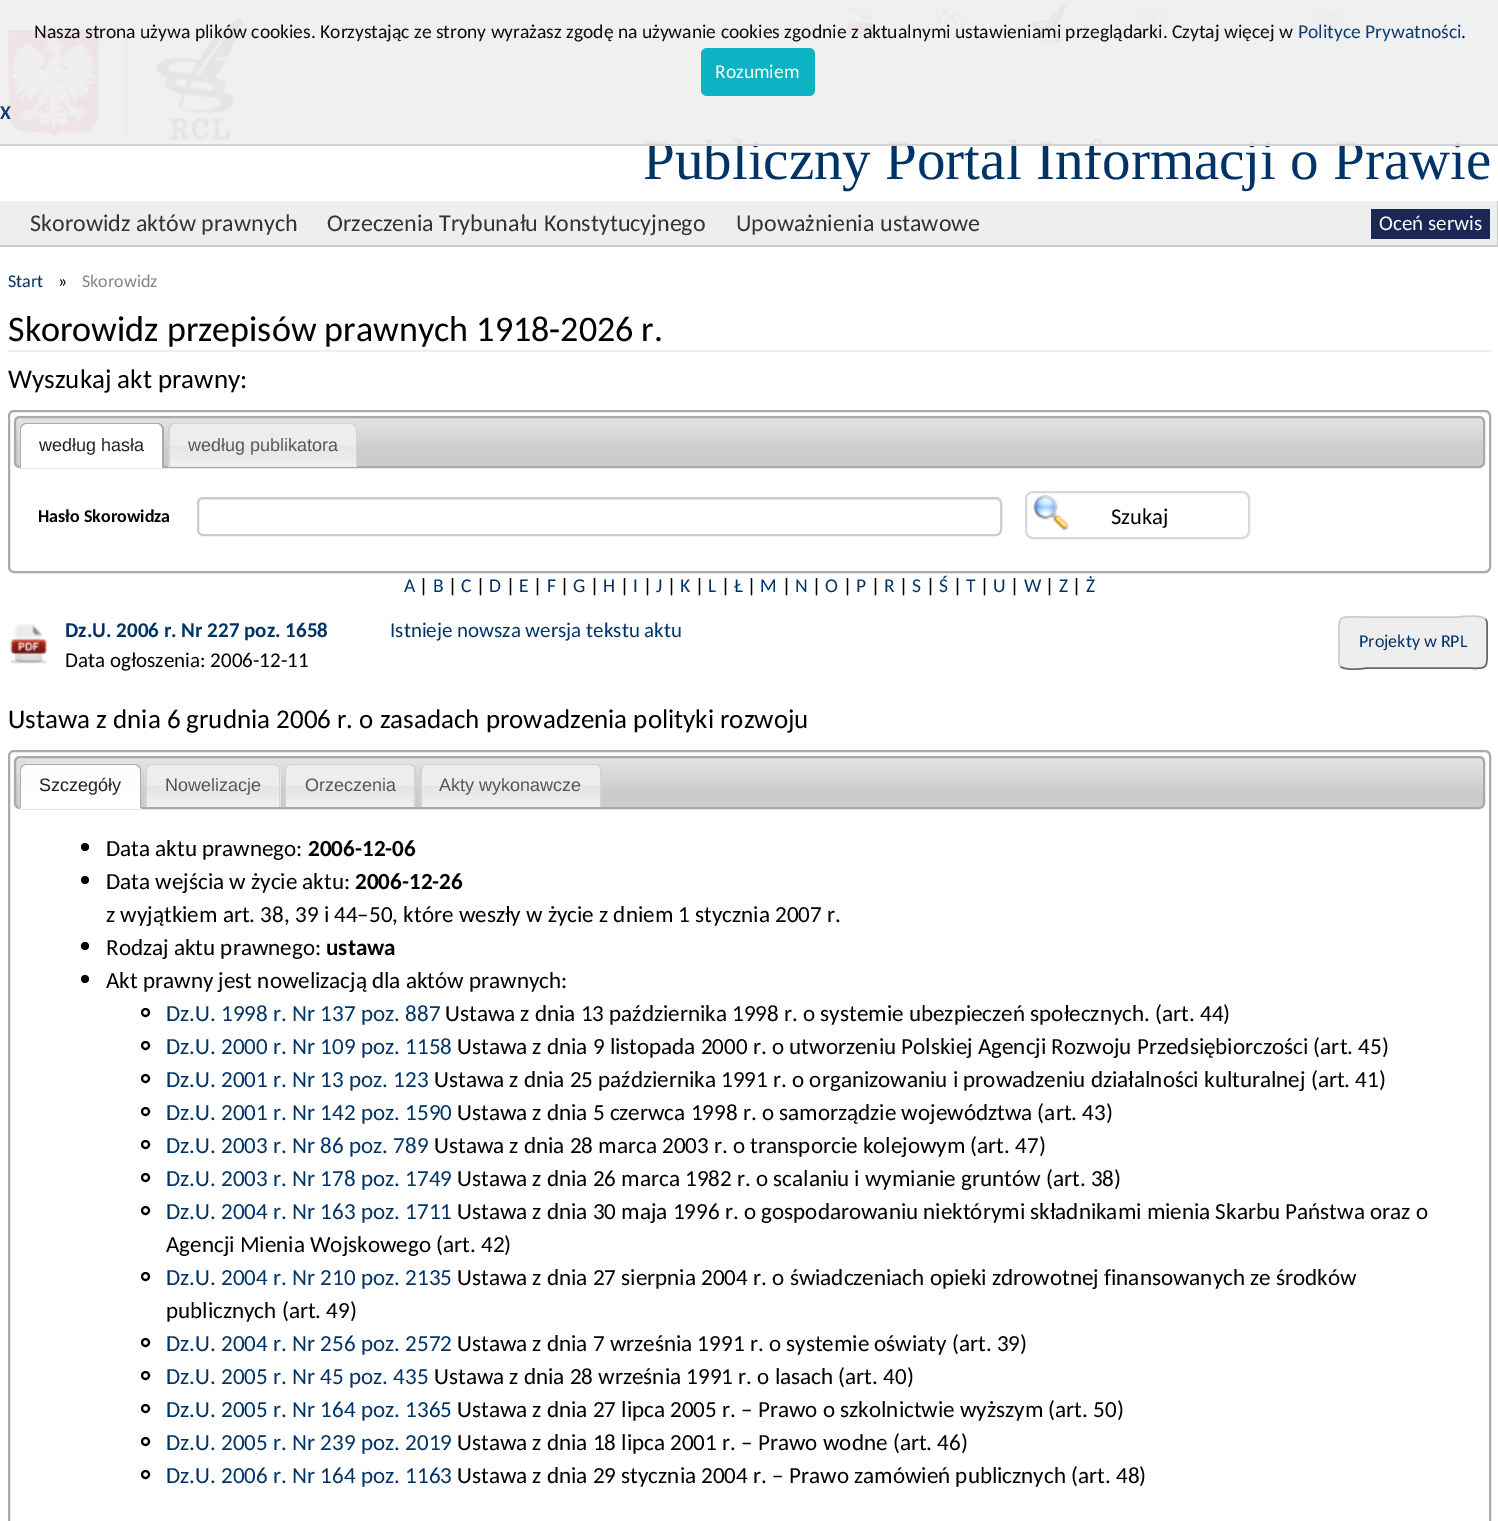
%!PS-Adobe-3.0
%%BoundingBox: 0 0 1498 1521
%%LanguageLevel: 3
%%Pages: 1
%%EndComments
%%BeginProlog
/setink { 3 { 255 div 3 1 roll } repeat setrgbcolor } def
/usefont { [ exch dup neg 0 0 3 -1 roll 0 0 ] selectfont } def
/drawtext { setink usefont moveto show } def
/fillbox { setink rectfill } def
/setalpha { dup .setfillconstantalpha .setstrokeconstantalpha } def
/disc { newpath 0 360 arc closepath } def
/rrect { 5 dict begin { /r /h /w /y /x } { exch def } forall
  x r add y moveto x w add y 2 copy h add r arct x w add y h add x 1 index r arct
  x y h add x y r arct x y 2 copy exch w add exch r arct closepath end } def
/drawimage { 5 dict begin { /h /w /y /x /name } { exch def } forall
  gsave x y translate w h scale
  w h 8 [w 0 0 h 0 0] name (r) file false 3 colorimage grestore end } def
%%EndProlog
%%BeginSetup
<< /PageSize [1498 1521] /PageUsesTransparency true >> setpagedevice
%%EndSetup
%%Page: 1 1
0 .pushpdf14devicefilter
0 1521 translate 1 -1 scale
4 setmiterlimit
0 0 1498 1521 255 255 255 fillbox
126 30 2 108 159 159 159 fillbox
(assets/img1.rgb) 7 30 92 108 drawimage
(assets/img2.rgb) 155 17 89 124 drawimage
(assets/img3.rgb) 845 7 30 32 drawimage
(assets/img4.rgb) 936 7 30 33 drawimage
(assets/img5.rgb) 1030 4 37 40 drawimage
(assets/img6.rgb) 1134 6 32 38 drawimage
(assets/img7.rgb) 1315 6 32 37 drawimage
(Publiczny Portal Informacji o Prawie) 643 179 /LiberationSerif-Regular 57 0 51 102 drawtext
0.95 setalpha
0 0 1498 146 239 239 239 fillbox
0 144 1498 2 211 208 208 fillbox
1 setalpha
(Nasza strona używa plików cookies. Korzystając ze strony wyrażasz zgodę na używanie cookies zgodnie z aktualnymi ustawieniami przeglądarki. Czytaj więcej w) 34 38 /Carlito-Regular 19.5 12 12 12 drawtext
(Polityce Prywatności) 1298 38 /Carlito-Regular 19.5 12 60 109 drawtext
(.) 1461 38 /Carlito-Regular 19.5 12 12 12 drawtext
13 179 194 setink
701 48 114 48 6 rrect fill
(Rozumiem) 715 78 /Carlito-Regular 19.5 255 255 255 drawtext
(X) 0 119 /Carlito-Bold 19.5 12 60 109 drawtext
0 201 1497 44 238 238 238 fillbox
1497 201 1 45 204 204 204 fillbox
0 245 1498 2 204 204 204 fillbox
(Skorowidz aktów prawnych) 30 231 /Carlito-Regular 24 51 51 51 drawtext
(Orzeczenia Trybunału Konstytucyjnego) 327 231 /Carlito-Regular 24 51 51 51 drawtext
(Upoważnienia ustawowe) 736 231 /Carlito-Regular 24 51 51 51 drawtext
1371 209 119 30 29 39 86 fillbox
(Oceń serwis) 1379 230 /Carlito-Regular 21 255 255 255 drawtext
(Start) 8 287 /Carlito-Regular 18 0 51 102 drawtext
(») 58 287 /Carlito-Regular 18 0 0 0 drawtext
(Skorowidz) 82 287 /Carlito-Regular 18 130 130 130 drawtext
8 350 1483 2 238 238 238 fillbox
(Skorowidz przepisów prawnych 1918-2026 r.) 8 341 /Carlito-Regular 36 0 0 0 drawtext
(Wyszukaj akt prawny:) 8 388 /Carlito-Regular 27 0 0 0 drawtext
170 170 170 setink
2 setlinewidth
9 411 1481 161 5 rrect stroke
(assets/img8.rgb) 13 415 1472 53 drawimage
15 417 1469 50 5 rrect stroke
255 255 255 setink
26 423 moveto 158 423 lineto 161.5 423 164 425.5 164 429 curveto 164 468 lineto 20 468 lineto 20 429 lineto 20 425.5 22.5 423 26 423 curveto closepath fill
(assets/img9.rgb) 19 423 6 45 drawimage
170 170 170 setink
26 423 moveto 158 423 lineto 161 423 164 426 164 429 curveto 164 468 lineto 20 468 lineto 20 429 lineto 20 426 22 423 26 423 curveto closepath 26 424 moveto 158 424 lineto 160 424 162 427 162 429 curveto 162 468 lineto 21 468 lineto 21 429 lineto 21 427 23 424 26 424 curveto closepath eofill
(według hasła) 39 451 /LiberationSans-Regular 18 33 33 33 drawtext
230 230 230 setink
174 423 moveto 351 423 lineto 354.5 423 357 425.5 357 429 curveto 357 467 lineto 168 467 lineto 168 429 lineto 168 425.5 170.5 423 174 423 curveto closepath fill
(assets/img10.rgb) 168 423 189 43 drawimage
211 211 211 setink
174 423 moveto 351 423 lineto 354 423 357 426 357 429 curveto 357 466 lineto 168 466 lineto 168 429 lineto 168 426 171 423 174 423 curveto closepath 174 424 moveto 351 424 lineto 353 424 356 427 356 429 curveto 356 466 lineto 170 466 lineto 170 429 lineto 170 427 172 424 174 424 curveto closepath eofill
(według publikatora) 188 451 /LiberationSans-Regular 18 85 85 85 drawtext
(Hasło Skorowidza) 38 522 /Carlito-Bold 18 0 0 0 drawtext
236 236 236 setink
202 500 moveto 996 500 lineto 998 500 1000 502 1000 504 curveto 1000 532 lineto 1001 531 1001 530 1001 529 curveto 1001 503 lineto 1001 500 999 498 996 498 curveto 203 498 lineto 200 498 198 500 198 503 curveto 198 504 lineto 198 502 200 500 202 500 curveto closepath fill
204 204 204 setink
198 498 803 37 5 rrect stroke
(assets/img11.rgb) 1033 495 36 36 drawimage
216 216 216 setink
1026 492 223 46 7 rrect stroke
(Szukaj) 1111 524 /Carlito-Regular 22.5 0 0 0 drawtext
(A) 404 592 /Carlito-Regular 19.5 0 51 102 drawtext
(|) 419 592 /Carlito-Regular 19.5 0 0 0 drawtext
(B) 433 592 /Carlito-Regular 19.5 0 51 102 drawtext
(|) 448 592 /Carlito-Regular 19.5 0 0 0 drawtext
(C) 461 592 /Carlito-Regular 19.5 0 51 102 drawtext
(|) 476 592 /Carlito-Regular 19.5 0 0 0 drawtext
(D) 489 592 /Carlito-Regular 19.5 0 51 102 drawtext
(|) 506 592 /Carlito-Regular 19.5 0 0 0 drawtext
(E) 519 592 /Carlito-Regular 19.5 0 51 102 drawtext
(|) 533 592 /Carlito-Regular 19.5 0 0 0 drawtext
(F) 547 592 /Carlito-Regular 19.5 0 51 102 drawtext
(|) 560 592 /Carlito-Regular 19.5 0 0 0 drawtext
(G) 573 592 /Carlito-Regular 19.5 0 51 102 drawtext
(|) 590 592 /Carlito-Regular 19.5 0 0 0 drawtext
(H) 603 592 /Carlito-Regular 19.5 0 51 102 drawtext
(|) 620 592 /Carlito-Regular 19.5 0 0 0 drawtext
(I) 633 592 /Carlito-Regular 19.5 0 51 102 drawtext
(|) 643 592 /Carlito-Regular 19.5 0 0 0 drawtext
(J) 656 592 /Carlito-Regular 19.5 0 51 102 drawtext
(|) 667 592 /Carlito-Regular 19.5 0 0 0 drawtext
(K) 680 592 /Carlito-Regular 19.5 0 51 102 drawtext
(|) 695 592 /Carlito-Regular 19.5 0 0 0 drawtext
(L) 708 592 /Carlito-Regular 19.5 0 51 102 drawtext
(|) 721 592 /Carlito-Regular 19.5 0 0 0 drawtext
(Ł) 734 592 /Carlito-Regular 19.5 0 51 102 drawtext
(|) 747 592 /Carlito-Regular 19.5 0 0 0 drawtext
(M) 760 592 /Carlito-Regular 19.5 0 51 102 drawtext
(|) 782 592 /Carlito-Regular 19.5 0 0 0 drawtext
(N) 795 592 /Carlito-Regular 19.5 0 51 102 drawtext
(|) 812 592 /Carlito-Regular 19.5 0 0 0 drawtext
(O) 825 592 /Carlito-Regular 19.5 0 51 102 drawtext
(|) 843 592 /Carlito-Regular 19.5 0 0 0 drawtext
(P) 856 592 /Carlito-Regular 19.5 0 51 102 drawtext
(|) 871 592 /Carlito-Regular 19.5 0 0 0 drawtext
(R) 884 592 /Carlito-Regular 19.5 0 51 102 drawtext
(|) 899 592 /Carlito-Regular 19.5 0 0 0 drawtext
(S) 912 592 /Carlito-Regular 19.5 0 51 102 drawtext
(|) 926 592 /Carlito-Regular 19.5 0 0 0 drawtext
(Ś) 939 592 /Carlito-Regular 19.5 0 51 102 drawtext
(|) 953 592 /Carlito-Regular 19.5 0 0 0 drawtext
(T) 966 592 /Carlito-Regular 19.5 0 51 102 drawtext
(|) 980 592 /Carlito-Regular 19.5 0 0 0 drawtext
(U) 993 592 /Carlito-Regular 19.5 0 51 102 drawtext
(|) 1010 592 /Carlito-Regular 19.5 0 0 0 drawtext
(W) 1024 592 /Carlito-Regular 19.5 0 51 102 drawtext
(|) 1045 592 /Carlito-Regular 19.5 0 0 0 drawtext
(Z) 1059 592 /Carlito-Regular 19.5 0 51 102 drawtext
(|) 1072 592 /Carlito-Regular 19.5 0 0 0 drawtext
(Ż) 1086 592 /Carlito-Regular 19.5 0 51 102 drawtext
(assets/img12.rgb) 10 624 37 40 drawimage
(Dz.U. 2006 r. Nr 227 poz. 1658) 65 637 /Carlito-Bold 21 0 51 102 drawtext
(Data ogłoszenia: 2006-12-11) 65 667 /Carlito-Regular 21 0 0 0 drawtext
(Istnieje nowsza wersja tekstu aktu) 390 637 /Carlito-Regular 21 0 51 102 drawtext
238 238 238 setink
1338 617 150 52 8 rrect fill
102 102 102 setink
1.5 setlinewidth
1485.5 619 moveto 1488 622 1487 626.5 1487 630 curveto 1487 643 lineto 1487 673 1490.5 668 1458 668 curveto 1368 668 lineto 1367.5 668 1346 671.5 1340.5 666.5 curveto stroke
204 204 204 setink
1340.5 666.5 moveto 1338 663.5 1339 659 1339 655 curveto 1339 643 lineto 1339 612.5 1335.5 617 1368 617 curveto 1458 617 lineto 1458.5 617 1480 614 1485.5 619 curveto stroke
(Projekty w RPL) 1359 647 /Carlito-Regular 18 0 51 102 drawtext
(Ustawa z dnia 6 grudnia 2006 r. o zasadach prowadzenia polityki rozwoju) 8 728 /Carlito-Regular 27 0 0 0 drawtext
170 170 170 setink
2 setlinewidth
9 751 1481 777 5 rrect stroke
(assets/img13.rgb) 13 756 1472 52 drawimage
15 757 1469 51 5 rrect stroke
255 255 255 setink
26 764 moveto 135 764 lineto 138.5 764 141 766.5 141 770 curveto 141 809 lineto 20 809 lineto 20 770 lineto 20 766.5 22.5 764 26 764 curveto closepath fill
(assets/img14.rgb) 19 763 122 46 drawimage
170 170 170 setink
26 764 moveto 135 764 lineto 138 764 141 766 141 770 curveto 141 808 lineto 20 808 lineto 20 770 lineto 20 766 22 764 26 764 curveto closepath 26 765 moveto 135 765 lineto 137 765 140 767 140 770 curveto 140 808 lineto 21 808 lineto 21 770 lineto 21 767 23 765 26 765 curveto closepath eofill
(Szczegóły) 39 791 /LiberationSans-Regular 18 33 33 33 drawtext
230 230 230 setink
152 764 moveto 275 764 lineto 278.5 764 281 766.5 281 770 curveto 281 807 lineto 146 807 lineto 146 770 lineto 146 766.5 148.5 764 152 764 curveto closepath fill
(assets/img15.rgb) 145 764 135 43 drawimage
211 211 211 setink
152 764 moveto 274 764 lineto 278 764 280 766 280 770 curveto 280 807 lineto 146 807 lineto 146 770 lineto 146 766 148 764 152 764 curveto closepath 152 765 moveto 274 765 lineto 277 765 279 767 279 770 curveto 279 807 lineto 147 807 lineto 147 770 lineto 147 767 149 765 152 765 curveto closepath eofill
(Nowelizacje) 165 791 /LiberationSans-Regular 18 85 85 85 drawtext
(assets/img16.rgb) 285 764 130 43 drawimage
211 211 211 setink
291 764 moveto 410 764 lineto 413 764 416 766 416 770 curveto 416 807 lineto 285 807 lineto 285 770 lineto 285 766 288 764 291 764 curveto closepath 291 765 moveto 410 765 lineto 412 765 414 767 414 770 curveto 414 807 lineto 286 807 lineto 286 770 lineto 286 767 289 765 291 765 curveto closepath eofill
(Orzeczenia) 305 791 /LiberationSans-Regular 18 85 85 85 drawtext
(assets/img17.rgb) 420 764 181 43 drawimage
211 211 211 setink
426 764 moveto 596 764 lineto 599 764 602 766 602 770 curveto 602 807 lineto 420 807 lineto 420 770 lineto 420 766 423 764 426 764 curveto closepath 426 765 moveto 596 765 lineto 598 765 600 767 600 770 curveto 600 807 lineto 422 807 lineto 422 770 lineto 422 767 424 765 426 765 curveto closepath eofill
(Akty wykonawcze) 439 791 /LiberationSans-Regular 18 85 85 85 drawtext
0 0 0 setink
85 847 4 disc fill
(Data aktu prawnego:) 106 856 /Carlito-Regular 23.1 0 0 0 drawtext
(2006-12-06) 308 856 /Carlito-Bold 23.1 0 0 0 drawtext
85 880 4 disc fill
(Data wejścia w życie aktu:) 106 889 /Carlito-Regular 23.1 0 0 0 drawtext
(2006-12-26) 355 889 /Carlito-Bold 23.1 0 0 0 drawtext
(z wyjątkiem art. 38, 39 i 44–50, które weszły w życie z dniem 1 stycznia 2007 r.) 106 922 /Carlito-Regular 23.1 0 0 0 drawtext
85 946 4 disc fill
(Rodzaj aktu prawnego:) 106 955 /Carlito-Regular 23.1 0 0 0 drawtext
(ustawa) 326 955 /Carlito-Bold 23.1 0 0 0 drawtext
85 979 4 disc fill
(Akt prawny jest nowelizacją dla aktów prawnych:) 106 988 /Carlito-Regular 23.1 0 0 0 drawtext
145.5 1012.5 3.5 disc stroke
(Dz.U. 1998 r. Nr 137 poz. 887) 166 1021 /Carlito-Regular 23.1 0 51 102 drawtext
(Ustawa z dnia 13 października 1998 r. o systemie ubezpieczeń społecznych. \(art. 44\)) 445 1021 /Carlito-Regular 23.1 0 0 0 drawtext
145.5 1045.5 3.5 disc stroke
(Dz.U. 2000 r. Nr 109 poz. 1158) 166 1054 /Carlito-Regular 23.1 0 51 102 drawtext
(Ustawa z dnia 9 listopada 2000 r. o utworzeniu Polskiej Agencji Rozwoju Przedsiębiorczości \(art. 45\)) 457 1054 /Carlito-Regular 23.1 0 0 0 drawtext
145.5 1078.5 3.5 disc stroke
(Dz.U. 2001 r. Nr 13 poz. 123) 166 1087 /Carlito-Regular 23.1 0 51 102 drawtext
(Ustawa z dnia 25 października 1991 r. o organizowaniu i prowadzeniu działalności kulturalnej \(art. 41\)) 434 1087 /Carlito-Regular 23.1 0 0 0 drawtext
145.5 1111.5 3.5 disc stroke
(Dz.U. 2001 r. Nr 142 poz. 1590) 166 1120 /Carlito-Regular 23.1 0 51 102 drawtext
(Ustawa z dnia 5 czerwca 1998 r. o samorządzie województwa \(art. 43\)) 457 1120 /Carlito-Regular 23.1 0 0 0 drawtext
145.5 1144.5 3.5 disc stroke
(Dz.U. 2003 r. Nr 86 poz. 789) 166 1153 /Carlito-Regular 23.1 0 51 102 drawtext
(Ustawa z dnia 28 marca 2003 r. o transporcie kolejowym \(art. 47\)) 434 1153 /Carlito-Regular 23.1 0 0 0 drawtext
145.5 1177.5 3.5 disc stroke
(Dz.U. 2003 r. Nr 178 poz. 1749) 166 1186 /Carlito-Regular 23.1 0 51 102 drawtext
(Ustawa z dnia 26 marca 1982 r. o scalaniu i wymianie gruntów \(art. 38\)) 457 1186 /Carlito-Regular 23.1 0 0 0 drawtext
145.5 1210.5 3.5 disc stroke
(Dz.U. 2004 r. Nr 163 poz. 1711) 166 1219 /Carlito-Regular 23.1 0 51 102 drawtext
(Ustawa z dnia 30 maja 1996 r. o gospodarowaniu niektórymi składnikami mienia Skarbu Państwa oraz o) 457 1219 /Carlito-Regular 23.1 0 0 0 drawtext
(Agencji Mienia Wojskowego \(art. 42\)) 166 1252 /Carlito-Regular 23.1 0 0 0 drawtext
145.5 1276.5 3.5 disc stroke
(Dz.U. 2004 r. Nr 210 poz. 2135) 166 1285 /Carlito-Regular 23.1 0 51 102 drawtext
(Ustawa z dnia 27 sierpnia 2004 r. o świadczeniach opieki zdrowotnej finansowanych ze środków) 457 1285 /Carlito-Regular 23.1 0 0 0 drawtext
(publicznych \(art. 49\)) 166 1318 /Carlito-Regular 23.1 0 0 0 drawtext
145.5 1342.5 3.5 disc stroke
(Dz.U. 2004 r. Nr 256 poz. 2572) 166 1351 /Carlito-Regular 23.1 0 51 102 drawtext
(Ustawa z dnia 7 września 1991 r. o systemie oświaty \(art. 39\)) 457 1351 /Carlito-Regular 23.1 0 0 0 drawtext
145.5 1375.5 3.5 disc stroke
(Dz.U. 2005 r. Nr 45 poz. 435) 166 1384 /Carlito-Regular 23.1 0 51 102 drawtext
(Ustawa z dnia 28 września 1991 r. o lasach \(art. 40\)) 434 1384 /Carlito-Regular 23.1 0 0 0 drawtext
145.5 1408.5 3.5 disc stroke
(Dz.U. 2005 r. Nr 164 poz. 1365) 166 1417 /Carlito-Regular 23.1 0 51 102 drawtext
(Ustawa z dnia 27 lipca 2005 r. – Prawo o szkolnictwie wyższym \(art. 50\)) 457 1417 /Carlito-Regular 23.1 0 0 0 drawtext
145.5 1441.5 3.5 disc stroke
(Dz.U. 2005 r. Nr 239 poz. 2019) 166 1450 /Carlito-Regular 23.1 0 51 102 drawtext
(Ustawa z dnia 18 lipca 2001 r. – Prawo wodne \(art. 46\)) 457 1450 /Carlito-Regular 23.1 0 0 0 drawtext
145.5 1474.5 3.5 disc stroke
(Dz.U. 2006 r. Nr 164 poz. 1163) 166 1483 /Carlito-Regular 23.1 0 51 102 drawtext
(Ustawa z dnia 29 stycznia 2004 r. – Prawo zamówień publicznych \(art. 48\)) 457 1483 /Carlito-Regular 23.1 0 0 0 drawtext
.poppdf14devicefilter showpage
%%EOF
